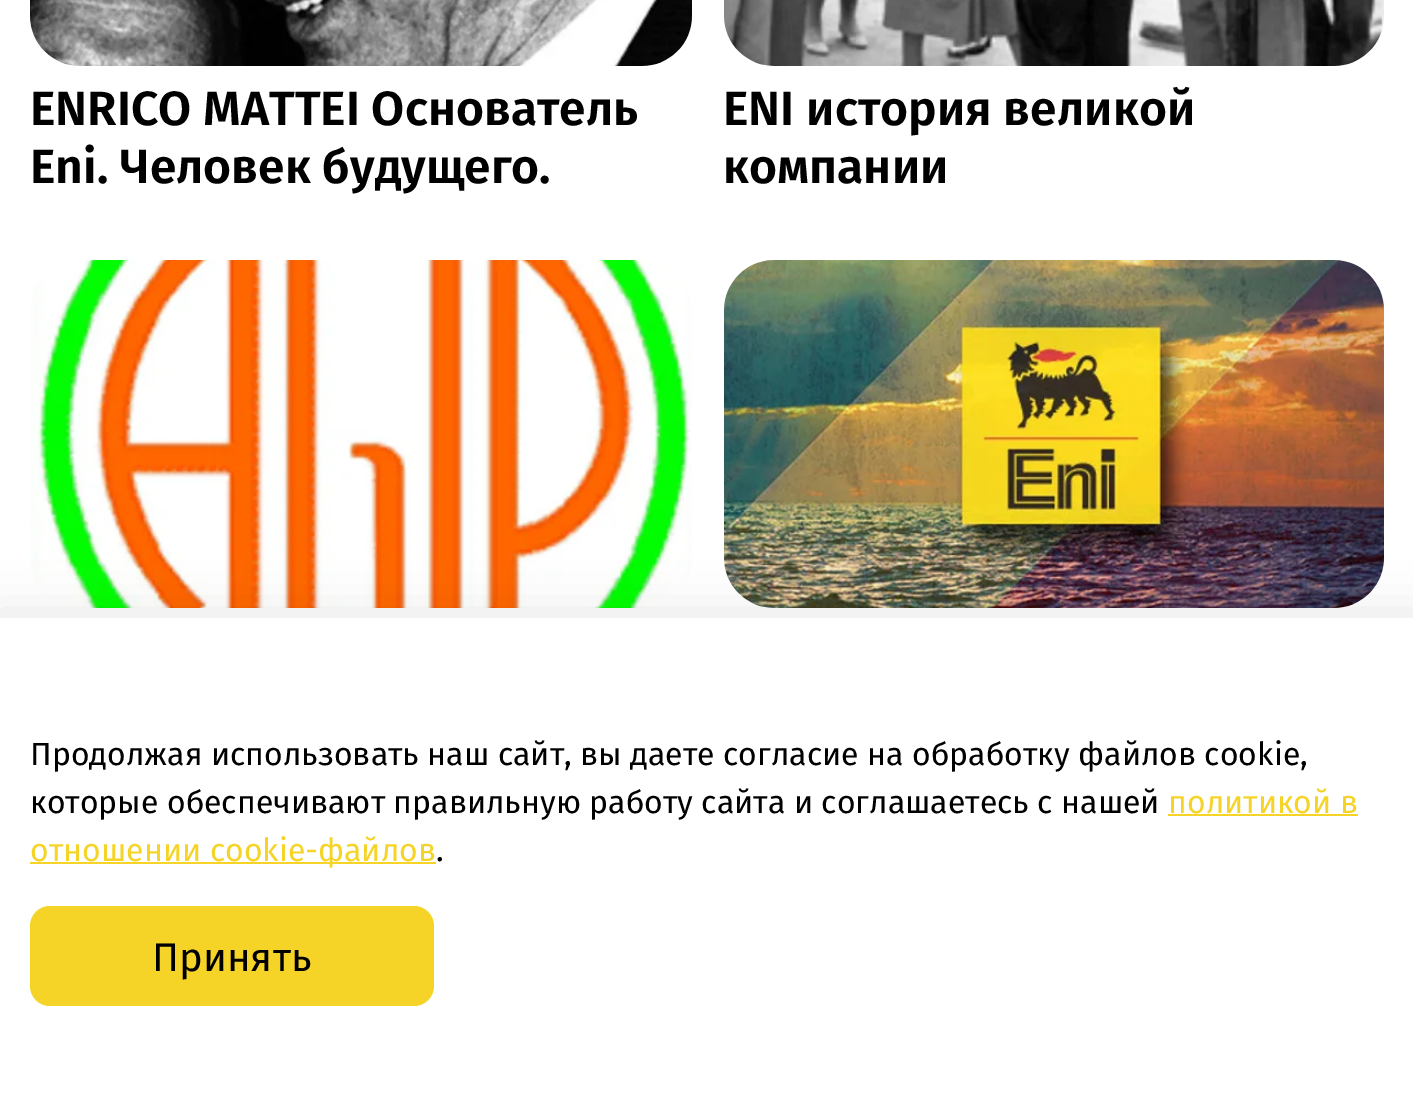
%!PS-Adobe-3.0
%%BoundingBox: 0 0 1413 1119
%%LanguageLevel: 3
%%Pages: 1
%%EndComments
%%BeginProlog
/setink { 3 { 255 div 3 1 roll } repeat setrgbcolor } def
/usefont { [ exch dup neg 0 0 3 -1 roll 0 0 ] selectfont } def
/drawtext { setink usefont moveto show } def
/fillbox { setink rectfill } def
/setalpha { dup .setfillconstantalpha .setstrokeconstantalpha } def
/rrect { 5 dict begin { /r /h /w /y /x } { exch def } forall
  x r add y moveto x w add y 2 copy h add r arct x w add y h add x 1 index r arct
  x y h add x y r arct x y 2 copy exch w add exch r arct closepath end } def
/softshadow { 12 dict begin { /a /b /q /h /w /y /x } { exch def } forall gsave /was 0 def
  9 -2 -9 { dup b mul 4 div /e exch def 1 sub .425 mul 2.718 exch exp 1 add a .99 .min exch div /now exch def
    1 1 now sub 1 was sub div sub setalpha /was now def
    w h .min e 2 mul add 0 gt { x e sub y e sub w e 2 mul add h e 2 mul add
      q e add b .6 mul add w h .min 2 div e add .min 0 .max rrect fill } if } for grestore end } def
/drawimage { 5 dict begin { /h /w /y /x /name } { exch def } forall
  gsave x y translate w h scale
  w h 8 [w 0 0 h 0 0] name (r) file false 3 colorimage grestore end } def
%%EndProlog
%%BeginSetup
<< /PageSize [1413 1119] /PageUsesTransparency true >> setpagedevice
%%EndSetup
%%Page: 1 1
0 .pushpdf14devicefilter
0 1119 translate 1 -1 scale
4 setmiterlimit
0 0 1413 1119 255 255 255 fillbox
(assets/img1.rgb) 30 0 662 66 drawimage
(ENRICO MATTEI Основатель) 30 125 /FiraSans-SemiBold 48 0 0 0 drawtext
(Eni. Человек будущего.) 30 183 /FiraSans-SemiBold 48 0 0 0 drawtext
(assets/img2.rgb) 724 0 660 66 drawimage
(ENI история великой) 723 125 /FiraSans-SemiBold 48 0 0 0 drawtext
(компании) 723 183 /FiraSans-SemiBold 48 0 0 0 drawtext
(assets/img3.rgb) 30 260 662 348 drawimage
(assets/img4.rgb) 724 260 660 348 drawimage
-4 612 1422 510 0 23 0.09 softshadow
0 618 1413 501 255 255 255 fillbox
(Продолжая использовать наш сайт, вы даете согласие на обработку файлов cookie,) 30 765 /FiraSans-Regular 32 0 0 0 drawtext
(которые обеспечивают правильную работу сайта и соглашаетесь с нашей) 30 813 /FiraSans-Regular 32 0 0 0 drawtext
(политикой в) 1168 813 /FiraSans-Regular 32 245 212 39 drawtext
1168 814 190 2 245 212 39 fillbox
30 862 406 2 245 212 39 fillbox
(отношении cookie-файлов) 30 861 /FiraSans-Regular 32 245 212 39 drawtext
(.) 436 861 /FiraSans-Regular 32 0 0 0 drawtext
245 212 39 setink
30 906 404 100 20 rrect fill
(Принять) 152 971 /FiraSans-Regular 40 0 0 0 drawtext
.poppdf14devicefilter showpage
%%EOF
